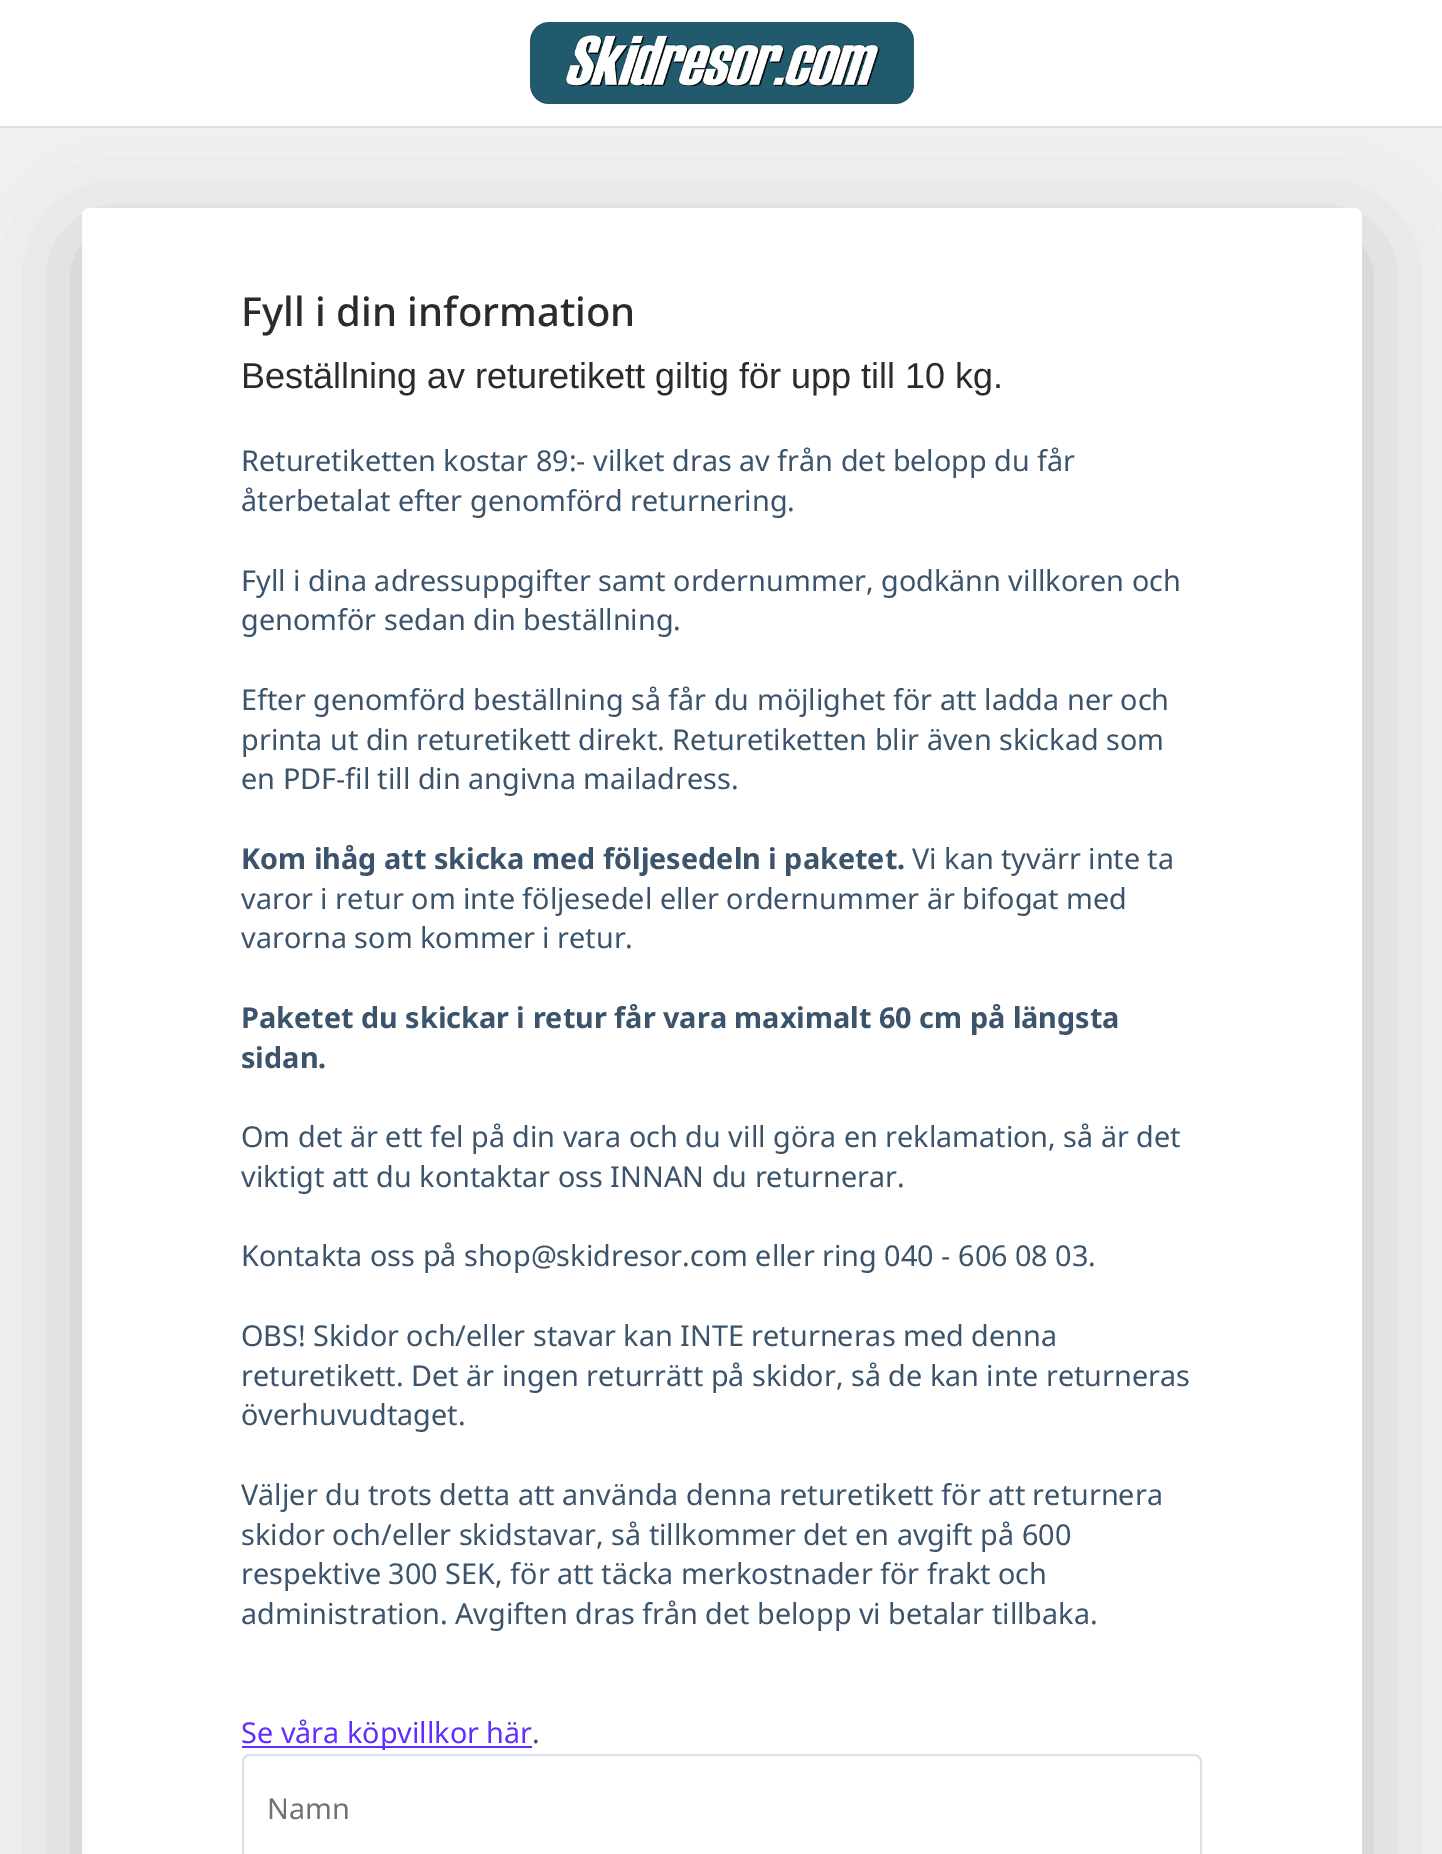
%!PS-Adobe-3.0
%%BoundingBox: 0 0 1442 1854
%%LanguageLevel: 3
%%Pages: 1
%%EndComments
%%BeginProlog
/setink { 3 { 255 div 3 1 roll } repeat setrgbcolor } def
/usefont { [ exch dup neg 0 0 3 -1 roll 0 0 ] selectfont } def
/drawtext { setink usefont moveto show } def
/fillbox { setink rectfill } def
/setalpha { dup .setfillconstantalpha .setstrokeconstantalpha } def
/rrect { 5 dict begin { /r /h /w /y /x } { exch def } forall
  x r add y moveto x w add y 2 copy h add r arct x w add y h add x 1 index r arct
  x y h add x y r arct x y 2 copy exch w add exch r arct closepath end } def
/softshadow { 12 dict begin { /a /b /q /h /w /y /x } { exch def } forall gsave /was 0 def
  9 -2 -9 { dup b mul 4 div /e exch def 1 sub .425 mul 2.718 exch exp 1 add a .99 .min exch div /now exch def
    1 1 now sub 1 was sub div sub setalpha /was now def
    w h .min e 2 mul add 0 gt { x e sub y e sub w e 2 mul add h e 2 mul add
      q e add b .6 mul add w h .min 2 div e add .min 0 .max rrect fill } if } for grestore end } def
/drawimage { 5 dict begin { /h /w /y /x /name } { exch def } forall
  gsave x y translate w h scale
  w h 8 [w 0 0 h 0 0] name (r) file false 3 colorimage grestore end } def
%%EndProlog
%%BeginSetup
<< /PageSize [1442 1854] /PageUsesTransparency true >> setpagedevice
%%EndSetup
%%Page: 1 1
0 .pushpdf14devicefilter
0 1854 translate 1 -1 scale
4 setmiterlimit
0 0 1442 1854 240 240 240 fillbox
0 0 1442 126 255 255 255 fillbox
0 126 1442 2 217 224 232 fillbox
(assets/img1.rgb) 530 22 384 82 drawimage
0 0 0 setink
82 240 1280 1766 8 48 0.18 softshadow
255 255 255 setink
82 208 1280 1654 8 rrect fill
(Fyll i din information) 241 326 /NotoSans-Medium 40 43 43 43 drawtext
(Beställning av returetikett giltig för upp till 10 kg.) 241 388 /LiberationSans-Regular 36 43 43 43 drawtext
(Returetiketten kostar 89:- vilket dras av från det belopp du får) 241 471 /NotoSans-Regular 28.8 59 83 107 drawtext
(återbetalat efter genomförd returnering.) 241 511 /NotoSans-Regular 28.8 59 83 107 drawtext
(Fyll i dina adressuppgifter samt ordernummer, godkänn villkoren och) 241 591 /NotoSans-Regular 28.8 59 83 107 drawtext
(genomför sedan din beställning.) 241 630 /NotoSans-Regular 28.8 59 83 107 drawtext
(Efter genomförd beställning så får du möjlighet för att ladda ner och) 241 710 /NotoSans-Regular 28.8 59 83 107 drawtext
(printa ut din returetikett direkt. Returetiketten blir även skickad som) 241 750 /NotoSans-Regular 28.8 59 83 107 drawtext
(en PDF-fil till din angivna mailadress.) 241 789 /NotoSans-Regular 28.8 59 83 107 drawtext
(Kom ihåg att skicka med följesedeln i paketet.) 241 869 /NotoSans-Bold 28.8 59 83 107 drawtext
(Vi kan tyvärr inte ta) 912 869 /NotoSans-Regular 28.8 59 83 107 drawtext
(varor i retur om inte följesedel eller ordernummer är bifogat med) 241 909 /NotoSans-Regular 28.8 59 83 107 drawtext
(varorna som kommer i retur.) 241 948 /NotoSans-Regular 28.8 59 83 107 drawtext
(Paketet du skickar i retur får vara maximalt 60 cm på längsta) 241 1028 /NotoSans-Bold 28.8 59 83 107 drawtext
(sidan.) 241 1068 /NotoSans-Bold 28.8 59 83 107 drawtext
(Om det är ett fel på din vara och du vill göra en reklamation, så är det) 241 1147 /NotoSans-Regular 28.8 59 83 107 drawtext
(viktigt att du kontaktar oss INNAN du returnerar.) 241 1187 /NotoSans-Regular 28.8 59 83 107 drawtext
(Kontakta oss på shop@skidresor.com eller ring 040 - 606 08 03.) 241 1266 /NotoSans-Regular 28.8 59 83 107 drawtext
(OBS! Skidor och/eller stavar kan INTE returneras med denna) 241 1346 /NotoSans-Regular 28.8 59 83 107 drawtext
(returetikett. Det är ingen returrätt på skidor, så de kan inte returneras) 241 1386 /NotoSans-Regular 28.8 59 83 107 drawtext
(överhuvudtaget.) 241 1425 /NotoSans-Regular 28.8 59 83 107 drawtext
(Väljer du trots detta att använda denna returetikett för att returnera) 241 1505 /NotoSans-Regular 28.8 59 83 107 drawtext
(skidor och/eller skidstavar, så tillkommer det) 241 1545 /NotoSans-Regular 28.8 59 83 107 drawtext
(en avgift på 600) 855 1545 /NotoSans-Regular 28.8 59 83 107 drawtext
(respektive 300 SEK, för att täcka merkostnader för frakt och) 241 1584 /NotoSans-Regular 28.8 59 83 107 drawtext
(administration. Avgiften dras från det belopp vi betalar tillbaka.) 241 1624 /NotoSans-Regular 28.8 59 83 107 drawtext
242 1746 290 2 99 44 255 fillbox
(Se våra köpvillkor här) 241 1743 /NotoSans-Regular 28.8 99 44 255 drawtext
(.) 532 1743 /NotoSans-Regular 28.8 59 83 107 drawtext
217 224 232 setink
2 setlinewidth
243 1755 958 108 7 rrect stroke
(Namn) 267 1819 /NotoSans-Regular 28.8 111 113 116 drawtext
.poppdf14devicefilter showpage
%%EOF
